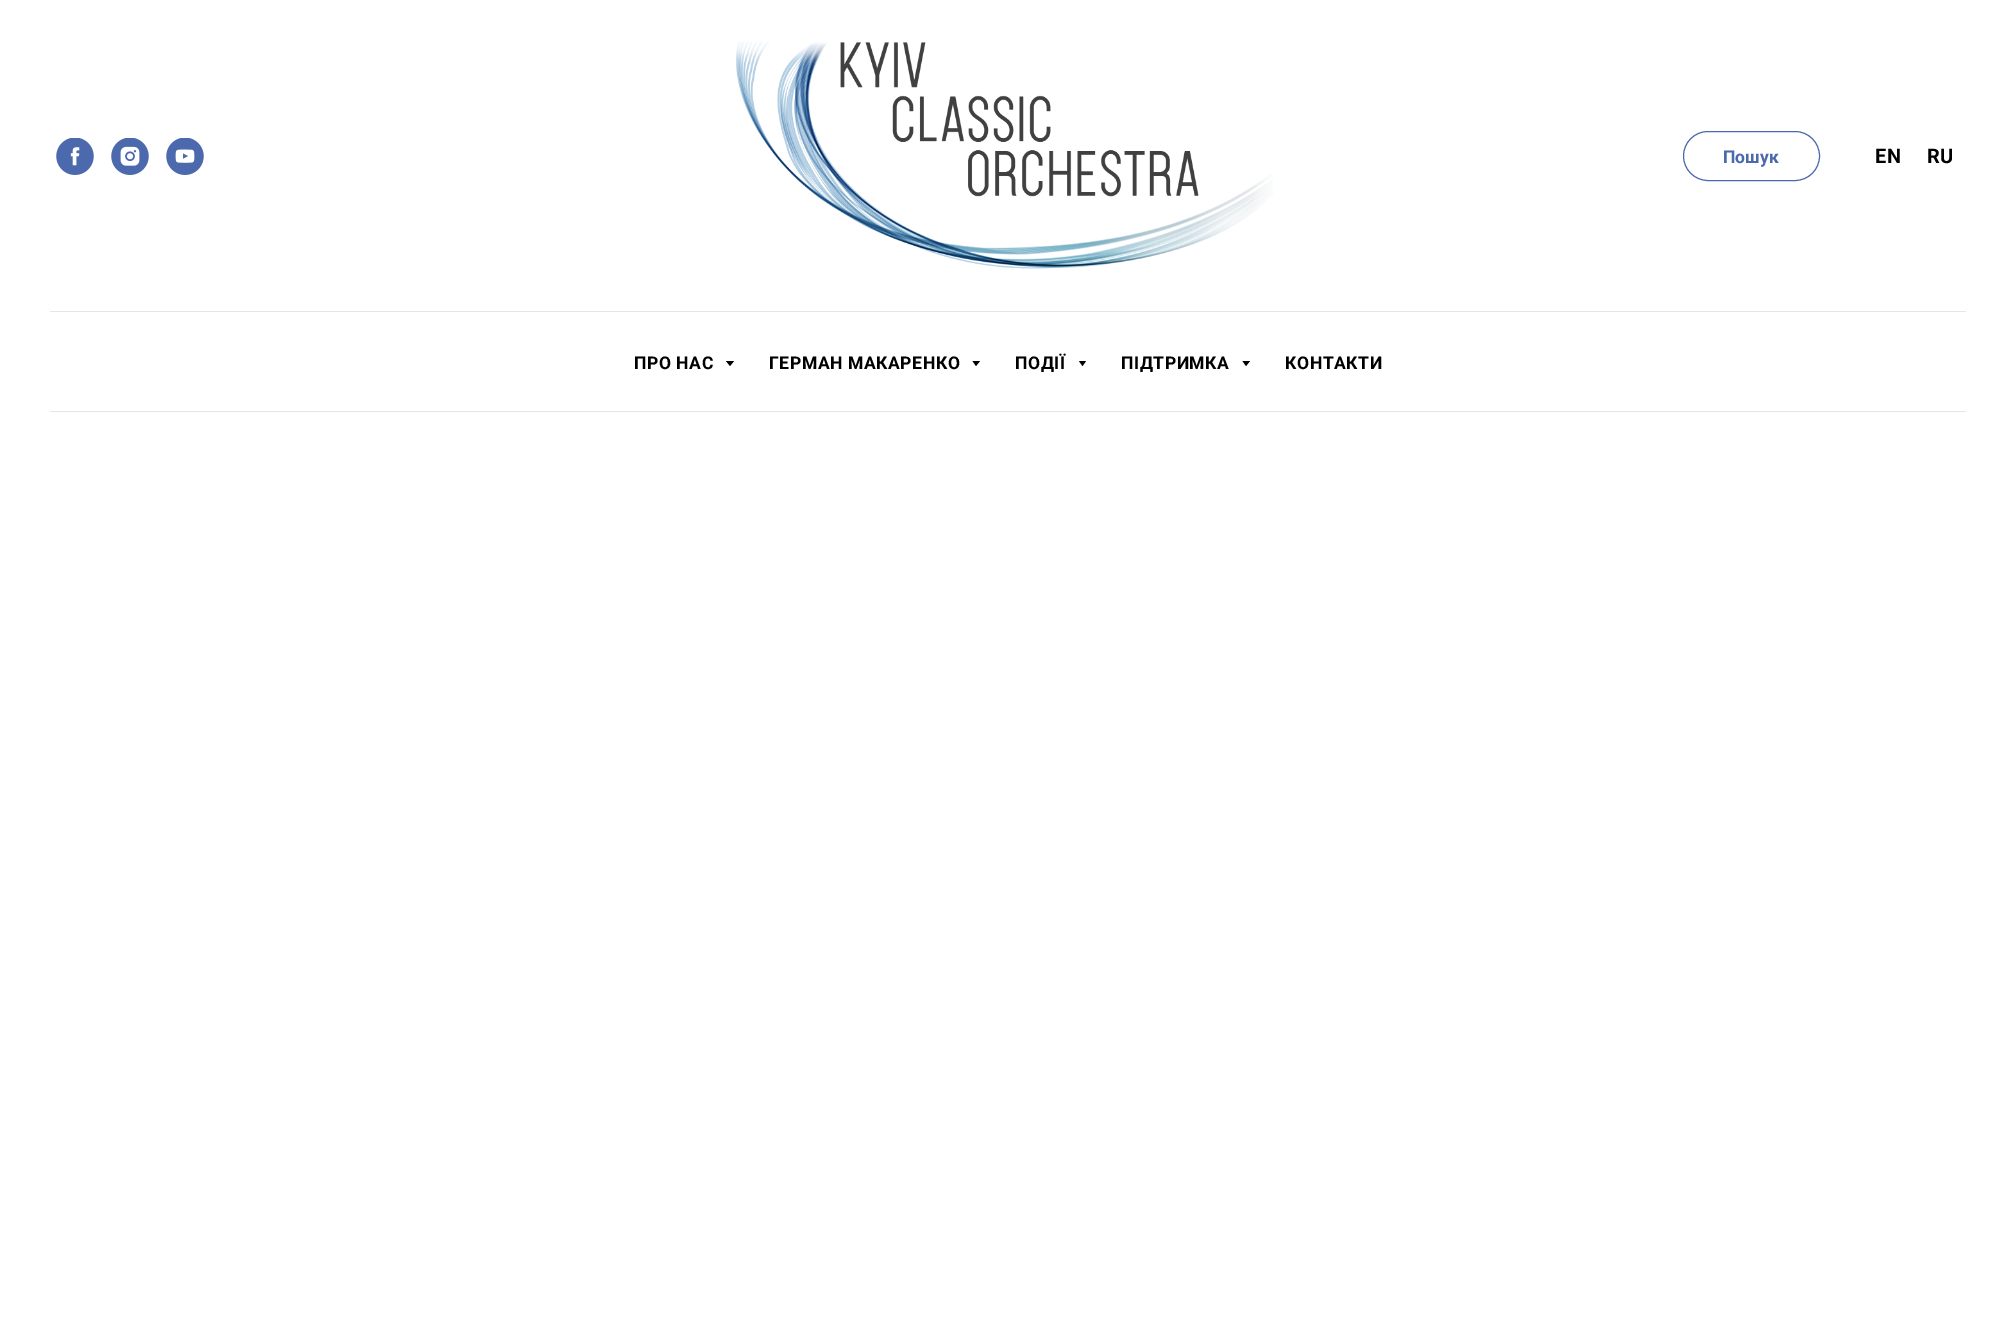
%!PS-Adobe-3.0
%%BoundingBox: 0 0 2016 1340
%%LanguageLevel: 3
%%Pages: 1
%%EndComments
%%BeginProlog
/setink { 3 { 255 div 3 1 roll } repeat setrgbcolor } def
/usefont { [ exch dup neg 0 0 3 -1 roll 0 0 ] selectfont } def
/drawtext { setink usefont moveto show } def
/fillbox { setink rectfill } def
/rrect { 5 dict begin { /r /h /w /y /x } { exch def } forall
  x r add y moveto x w add y 2 copy h add r arct x w add y h add x 1 index r arct
  x y h add x y r arct x y 2 copy exch w add exch r arct closepath end } def
/drawimage { 5 dict begin { /h /w /y /x /name } { exch def } forall
  gsave x y translate w h scale
  w h 8 [w 0 0 h 0 0] name (r) file false 3 colorimage grestore end } def
%%EndProlog
%%BeginSetup
<< /PageSize [2016 1340] >> setpagedevice
%%EndSetup
%%Page: 1 1
0 1340 translate 1 -1 scale
4 setmiterlimit
0 0 2016 1340 255 255 255 fillbox
(assets/img1.rgb) 736 41 537 228 drawimage
(assets/img2.rgb) 56 138 38 37 drawimage
(assets/img3.rgb) 111 138 38 37 drawimage
(assets/img4.rgb) 166 138 38 37 drawimage
76 105 174 setink
1683.5 131.5 136 49 24.5 rrect stroke
(Пошук) 1723 163 /Roboto-Bold 17.5 76 105 174 drawtext
/Roboto-Bold 20 usefont
0 0 0 setink
1875 163 moveto 0.6 0 (EN) ashow
1927 163 moveto 0.6 0 (RU) ashow
50 311 1916 1 230 230 230 fillbox
/Roboto-Bold 17.5 usefont
0 0 0 setink
634 369 moveto 0.6 0 (ПРО НАС) ashow
726 361 moveto 734 361 lineto 730 366 lineto closepath fill
769 369 moveto 0.6 0 (ГЕРМАН МАКАРЕНКО) ashow
972.5 361 moveto 980 361 lineto 976 366 lineto closepath fill
1015 369 moveto 0.6 0 (ПОДІЇ) ashow
1079 361 moveto 1086 361 lineto 1082.5 366 lineto closepath fill
1121 369 moveto 0.6 0 (ПІДТРИМКА) ashow
1242.5 361 moveto 1250 361 lineto 1246 366 lineto closepath fill
1285 369 moveto 0.6 0 (КОНТАКТИ) ashow
50 411 1916 1 230 230 230 fillbox
showpage
%%EOF
